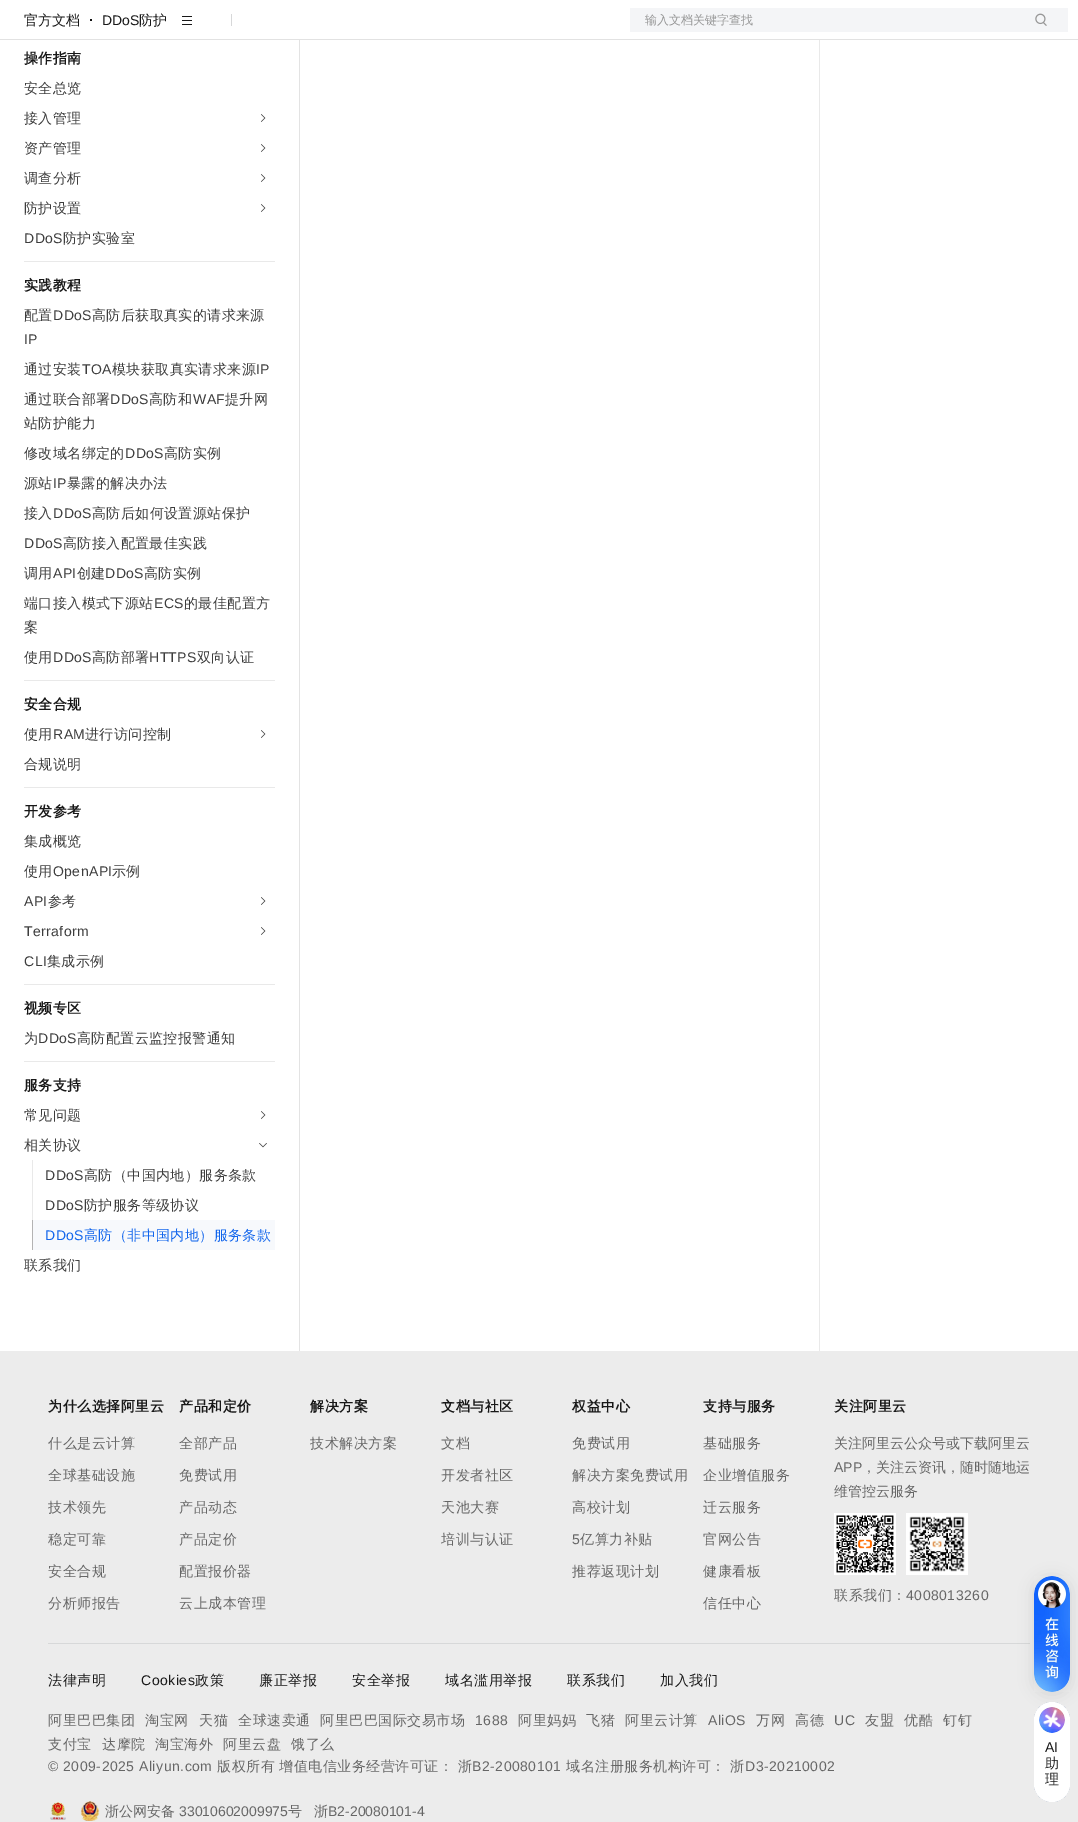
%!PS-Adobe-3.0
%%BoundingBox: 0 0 1078 1822
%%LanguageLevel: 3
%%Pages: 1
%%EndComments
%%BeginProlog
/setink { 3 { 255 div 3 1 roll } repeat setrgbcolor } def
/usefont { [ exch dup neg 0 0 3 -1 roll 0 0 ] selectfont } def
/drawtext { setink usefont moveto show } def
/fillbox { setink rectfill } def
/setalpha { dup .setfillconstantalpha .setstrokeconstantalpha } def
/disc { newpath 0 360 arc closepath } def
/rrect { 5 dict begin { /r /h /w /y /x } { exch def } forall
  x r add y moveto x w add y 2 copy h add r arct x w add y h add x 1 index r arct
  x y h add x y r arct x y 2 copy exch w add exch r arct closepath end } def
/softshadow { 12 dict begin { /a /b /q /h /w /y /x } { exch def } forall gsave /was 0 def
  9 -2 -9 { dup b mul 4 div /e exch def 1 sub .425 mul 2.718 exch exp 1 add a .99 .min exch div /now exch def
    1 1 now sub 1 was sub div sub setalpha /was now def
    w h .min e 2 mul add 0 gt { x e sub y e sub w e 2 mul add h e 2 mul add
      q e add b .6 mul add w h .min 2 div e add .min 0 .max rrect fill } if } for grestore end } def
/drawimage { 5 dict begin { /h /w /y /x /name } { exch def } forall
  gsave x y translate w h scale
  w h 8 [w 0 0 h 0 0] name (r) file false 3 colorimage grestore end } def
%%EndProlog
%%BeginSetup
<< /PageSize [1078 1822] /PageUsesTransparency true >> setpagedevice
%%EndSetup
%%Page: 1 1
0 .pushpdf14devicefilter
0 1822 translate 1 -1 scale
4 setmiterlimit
0 0 1078 1822 255 255 255 fillbox
0 39 1078 1 226 226 226 fillbox
231 14 1 12 215 216 217 fillbox
(官方文档) 24 25 /WenQuanYiZenHei-Medium 14 24 24 24 drawtext
0 0 0 setink
91 20 1 disc fill
(DDoS) 102 25 /LiberationSans-Regular 14 24 24 24 drawtext
(防护) 139 25 /WenQuanYiZenHei-Medium 14 24 24 24 drawtext
182 16 10 1 24 24 24 fillbox
182 20 10 1 24 24 24 fillbox
182 24 10 1 24 24 24 fillbox
630 8 438 24 244 245 247 fillbox
(输入文档关键字查找) 645 24 /WenQuanYiZenHei-Medium 12 151 151 151 drawtext
(assets/img1.rgb) 1035 13 12 13 drawimage
24 261 251 1 233 233 233 fillbox
/WenQuanYiZenHei-Bold 14 usefont
24 24 24 setink
24 63 moveto 0.4 0 (操作指南) ashow
/WenQuanYiZenHei-Medium 14 usefont
61 61 61 setink
24 93 moveto 0.4 0 (安全总览) ashow
24 123 moveto 0.4 0 (接入管理) ashow
(assets/img2.rgb) 261 114 5 8 drawimage
24 153 moveto 0.4 0 (资产管理) ashow
(assets/img2.rgb) 261 144 5 8 drawimage
24 183 moveto 0.4 0 (调查分析) ashow
(assets/img2.rgb) 261 174 5 8 drawimage
24 213 moveto 0.4 0 (防护设置) ashow
(assets/img2.rgb) 261 204 5 8 drawimage
/LiberationSans-Regular 14 usefont
24 243 moveto 0.4 0 (DDoS) ashow
/WenQuanYiZenHei-Medium 14 usefont
63 243 moveto 0.4 0 (防护实验室) ashow
24 680 251 1 233 233 233 fillbox
/WenQuanYiZenHei-Bold 14 usefont
24 24 24 setink
24 290 moveto 0.4 0 (实践教程) ashow
/WenQuanYiZenHei-Medium 14 usefont
61 61 61 setink
24 320 moveto 0.4 0 (配置) ashow
/LiberationSans-Regular 14 usefont
53 320 moveto 0.4 0 (DDoS) ashow
/WenQuanYiZenHei-Medium 14 usefont
92 320 moveto 0.4 0 (高防后获取真实的请求来源) ashow
/LiberationSans-Regular 14 usefont
24 344 moveto 0.4 0 (IP) ashow
/WenQuanYiZenHei-Medium 14 usefont
24 374 moveto 0.4 0 (通过安装) ashow
/LiberationSans-Regular 14 usefont
82 374 moveto 0.4 0 (TOA) ashow
/WenQuanYiZenHei-Medium 14 usefont
112 374 moveto 0.4 0 (模块获取真实请求来源) ashow
/LiberationSans-Regular 14 usefont
256 374 moveto 0.4 0 (IP) ashow
/WenQuanYiZenHei-Medium 14 usefont
24 404 moveto 0.4 0 (通过联合部署) ashow
/LiberationSans-Regular 14 usefont
110 404 moveto 0.4 0 (DDoS) ashow
/WenQuanYiZenHei-Medium 14 usefont
149 404 moveto 0.4 0 (高防和) ashow
/LiberationSans-Regular 14 usefont
193 404 moveto 0.4 0 (WAF) ashow
/WenQuanYiZenHei-Medium 14 usefont
225 404 moveto 0.4 0 (提升网) ashow
24 428 moveto 0.4 0 (站防护能力) ashow
24 458 moveto 0.4 0 (修改域名绑定的) ashow
/LiberationSans-Regular 14 usefont
125 458 moveto 0.4 0 (DDoS) ashow
/WenQuanYiZenHei-Medium 14 usefont
164 458 moveto 0.4 0 (高防实例) ashow
24 488 moveto 0.4 0 (源站) ashow
/LiberationSans-Regular 14 usefont
53 488 moveto 0.4 0 (IP) ashow
/WenQuanYiZenHei-Medium 14 usefont
67 488 moveto 0.4 0 (暴露的解决办法) ashow
24 518 moveto 0.4 0 (接入) ashow
/LiberationSans-Regular 14 usefont
53 518 moveto 0.4 0 (DDoS) ashow
/WenQuanYiZenHei-Medium 14 usefont
92 518 moveto 0.4 0 (高防后如何设置源站保护) ashow
/LiberationSans-Regular 14 usefont
24 548 moveto 0.4 0 (DDoS) ashow
/WenQuanYiZenHei-Medium 14 usefont
63 548 moveto 0.4 0 (高防接入配置最佳实践) ashow
24 578 moveto 0.4 0 (调用) ashow
/LiberationSans-Regular 14 usefont
53 578 moveto 0.4 0 (API) ashow
/WenQuanYiZenHei-Medium 14 usefont
77 578 moveto 0.4 0 (创建) ashow
/LiberationSans-Regular 14 usefont
105 578 moveto 0.4 0 (DDoS) ashow
/WenQuanYiZenHei-Medium 14 usefont
144 578 moveto 0.4 0 (高防实例) ashow
24 608 moveto 0.4 0 (端口接入模式下源站) ashow
/LiberationSans-Regular 14 usefont
154 608 moveto 0.4 0 (ECS) ashow
/WenQuanYiZenHei-Medium 14 usefont
184 608 moveto 0.4 0 (的最佳配置方) ashow
24 632 moveto 0.4 0 (案) ashow
24 662 moveto 0.4 0 (使用) ashow
/LiberationSans-Regular 14 usefont
53 662 moveto 0.4 0 (DDoS) ashow
/WenQuanYiZenHei-Medium 14 usefont
92 662 moveto 0.4 0 (高防部署) ashow
/LiberationSans-Regular 14 usefont
149 662 moveto 0.4 0 (HTTPS) ashow
/WenQuanYiZenHei-Medium 14 usefont
197 662 moveto 0.4 0 (双向认证) ashow
24 787 251 1 233 233 233 fillbox
/WenQuanYiZenHei-Bold 14 usefont
24 24 24 setink
24 709 moveto 0.4 0 (安全合规) ashow
/WenQuanYiZenHei-Medium 14 usefont
61 61 61 setink
24 739 moveto 0.4 0 (使用) ashow
/LiberationSans-Regular 14 usefont
53 739 moveto 0.4 0 (RAM) ashow
/WenQuanYiZenHei-Medium 14 usefont
85 739 moveto 0.4 0 (进行访问控制) ashow
(assets/img2.rgb) 261 730 5 8 drawimage
24 769 moveto 0.4 0 (合规说明) ashow
24 984 251 1 233 233 233 fillbox
/WenQuanYiZenHei-Bold 14 usefont
24 24 24 setink
24 816 moveto 0.4 0 (开发参考) ashow
/WenQuanYiZenHei-Medium 14 usefont
61 61 61 setink
24 846 moveto 0.4 0 (集成概览) ashow
24 876 moveto 0.4 0 (使用) ashow
/LiberationSans-Regular 14 usefont
53 876 moveto 0.4 0 (OpenAPI) ashow
/WenQuanYiZenHei-Medium 14 usefont
112 876 moveto 0.4 0 (示例) ashow
/LiberationSans-Regular 14 usefont
24 906 moveto 0.4 0 (API) ashow
/WenQuanYiZenHei-Medium 14 usefont
48 906 moveto 0.4 0 (参考) ashow
(assets/img2.rgb) 261 897 5 8 drawimage
/LiberationSans-Regular 14 usefont
24 936 moveto 0.4 0 (Terraform) ashow
(assets/img2.rgb) 261 927 5 8 drawimage
24 966 moveto 0.4 0 (CLI) ashow
/WenQuanYiZenHei-Medium 14 usefont
47 966 moveto 0.4 0 (集成示例) ashow
24 1061 251 1 233 233 233 fillbox
/WenQuanYiZenHei-Bold 14 usefont
24 24 24 setink
24 1013 moveto 0.4 0 (视频专区) ashow
/WenQuanYiZenHei-Medium 14 usefont
61 61 61 setink
24 1043 moveto 0.4 0 (为) ashow
/LiberationSans-Regular 14 usefont
38 1043 moveto 0.4 0 (DDoS) ashow
/WenQuanYiZenHei-Medium 14 usefont
77 1043 moveto 0.4 0 (高防配置云监控报警通知) ashow
/WenQuanYiZenHei-Bold 14 usefont
24 24 24 setink
24 1090 moveto 0.4 0 (服务支持) ashow
/WenQuanYiZenHei-Medium 14 usefont
61 61 61 setink
24 1120 moveto 0.4 0 (常见问题) ashow
(assets/img2.rgb) 261 1111 5 8 drawimage
24 1150 moveto 0.4 0 (相关协议) ashow
(assets/img3.rgb) 259 1143 8 5 drawimage
32 1160 1 60 233 233 233 fillbox
/LiberationSans-Regular 14 usefont
61 61 61 setink
45 1180 moveto 0.4 0 (DDoS) ashow
/WenQuanYiZenHei-Medium 14 usefont
84 1180 moveto 0.4 0 (高防（中国内地）服务条款) ashow
/LiberationSans-Regular 14 usefont
45 1210 moveto 0.4 0 (DDoS) ashow
/WenQuanYiZenHei-Medium 14 usefont
84 1210 moveto 0.4 0 (防护服务等级协议) ashow
33 1220 242 30 247 249 252 fillbox
32 1220 1 30 179 179 179 fillbox
/LiberationSans-Regular 14 usefont
19 102 236 setink
45 1240 moveto 0.4 0 (DDoS) ashow
/WenQuanYiZenHei-Medium 14 usefont
84 1240 moveto 0.4 0 (高防（非中国内地）服务条款) ashow
61 61 61 setink
24 1270 moveto 0.4 0 (联系我们) ashow
299 40 1 1311 227 227 227 fillbox
819 40 1 1311 233 233 233 fillbox
0 1351 1078 471 236 236 236 fillbox
48 1643 982 1 215 216 217 fillbox
/WenQuanYiZenHei-Bold 14 usefont
24 24 24 setink
48 1411 moveto 0.5 0 (为什么选择阿里云) ashow
/WenQuanYiZenHei-Medium 14 usefont
102 102 102 setink
48 1448 moveto 0.5 0 (什么是云计算) ashow
48 1480 moveto 0.5 0 (全球基础设施) ashow
48 1512 moveto 0.5 0 (技术领先) ashow
48 1544 moveto 0.5 0 (稳定可靠) ashow
48 1576 moveto 0.5 0 (安全合规) ashow
48 1608 moveto 0.5 0 (分析师报告) ashow
/WenQuanYiZenHei-Bold 14 usefont
24 24 24 setink
179 1411 moveto 0.5 0 (产品和定价) ashow
/WenQuanYiZenHei-Medium 14 usefont
102 102 102 setink
179 1448 moveto 0.5 0 (全部产品) ashow
179 1480 moveto 0.5 0 (免费试用) ashow
179 1512 moveto 0.5 0 (产品动态) ashow
179 1544 moveto 0.5 0 (产品定价) ashow
179 1576 moveto 0.5 0 (配置报价器) ashow
179 1608 moveto 0.5 0 (云上成本管理) ashow
/WenQuanYiZenHei-Bold 14 usefont
24 24 24 setink
310 1411 moveto 0.5 0 (解决方案) ashow
/WenQuanYiZenHei-Medium 14 usefont
102 102 102 setink
310 1448 moveto 0.5 0 (技术解决方案) ashow
/WenQuanYiZenHei-Bold 14 usefont
24 24 24 setink
441 1411 moveto 0.5 0 (文档与社区) ashow
/WenQuanYiZenHei-Medium 14 usefont
102 102 102 setink
441 1448 moveto 0.5 0 (文档) ashow
441 1480 moveto 0.5 0 (开发者社区) ashow
441 1512 moveto 0.5 0 (天池大赛) ashow
441 1544 moveto 0.5 0 (培训与认证) ashow
/WenQuanYiZenHei-Bold 14 usefont
24 24 24 setink
572 1411 moveto 0.5 0 (权益中心) ashow
/WenQuanYiZenHei-Medium 14 usefont
102 102 102 setink
572 1448 moveto 0.5 0 (免费试用) ashow
572 1480 moveto 0.5 0 (解决方案免费试用) ashow
572 1512 moveto 0.5 0 (高校计划) ashow
/LiberationSans-Regular 14 usefont
572 1544 moveto 0.5 0 (5) ashow
/WenQuanYiZenHei-Medium 14 usefont
580 1544 moveto 0.5 0 (亿算力补贴) ashow
572 1576 moveto 0.5 0 (推荐返现计划) ashow
/WenQuanYiZenHei-Bold 14 usefont
24 24 24 setink
703 1411 moveto 0.5 0 (支持与服务) ashow
/WenQuanYiZenHei-Medium 14 usefont
102 102 102 setink
703 1448 moveto 0.5 0 (基础服务) ashow
703 1480 moveto 0.5 0 (企业增值服务) ashow
703 1512 moveto 0.5 0 (迁云服务) ashow
703 1544 moveto 0.5 0 (官网公告) ashow
703 1576 moveto 0.5 0 (健康看板) ashow
703 1608 moveto 0.5 0 (信任中心) ashow
/WenQuanYiZenHei-Bold 14 usefont
24 24 24 setink
834 1411 moveto 0.5 0 (关注阿里云) ashow
(关注阿里云公众号或下载阿里云) 834 1448 /WenQuanYiZenHei-Medium 14 102 102 102 drawtext
(APP) 834 1472 /LiberationSans-Regular 14 102 102 102 drawtext
(，关注云资讯，随时随地运) 862 1472 /WenQuanYiZenHei-Medium 14 102 102 102 drawtext
(维管控云服务) 834 1496 /WenQuanYiZenHei-Medium 14 102 102 102 drawtext
(assets/img4.rgb) 834 1513 62 62 drawimage
(assets/img5.rgb) 906 1513 62 62 drawimage
834 1600 moveto 0.5 0 (联系我们：) ashow
/LiberationSans-Regular 14 usefont
906 1600 moveto 0.5 0 (4008013260) ashow
/WenQuanYiZenHei-Medium 14 usefont
24 24 24 setink
48 1685 moveto 0.5 0 (法律声明) ashow
/LiberationSans-Regular 14 usefont
141 1685 moveto 0.5 0 (Cookies) ashow
/WenQuanYiZenHei-Medium 14 usefont
195 1685 moveto 0.5 0 (政策) ashow
259 1685 moveto 0.5 0 (廉正举报) ashow
352 1685 moveto 0.5 0 (安全举报) ashow
445 1685 moveto 0.5 0 (域名滥用举报) ashow
567 1685 moveto 0.5 0 (联系我们) ashow
660 1685 moveto 0.5 0 (加入我们) ashow
102 102 102 setink
48 1725 moveto 0.5 0 (阿里巴巴集团) ashow
145 1725 moveto 0.5 0 (淘宝网) ashow
199 1725 moveto 0.5 0 (天猫) ashow
238 1725 moveto 0.5 0 (全球速卖通) ashow
320 1725 moveto 0.5 0 (阿里巴巴国际交易市场) ashow
/LiberationSans-Regular 14 usefont
475 1725 moveto 0.5 0 (1688) ashow
/WenQuanYiZenHei-Medium 14 usefont
518 1725 moveto 0.5 0 (阿里妈妈) ashow
586 1725 moveto 0.5 0 (飞猪) ashow
625 1725 moveto 0.5 0 (阿里云计算) ashow
/LiberationSans-Regular 14 usefont
708 1725 moveto 0.5 0 (AliOS) ashow
/WenQuanYiZenHei-Medium 14 usefont
756 1725 moveto 0.5 0 (万网) ashow
795 1725 moveto 0.5 0 (高德) ashow
/LiberationSans-Regular 14 usefont
834 1725 moveto 0.5 0 (UC) ashow
/WenQuanYiZenHei-Medium 14 usefont
865 1725 moveto 0.5 0 (友盟) ashow
904 1725 moveto 0.5 0 (优酷) ashow
943 1725 moveto 0.5 0 (钉钉) ashow
48 1749 moveto 0.5 0 (支付宝) ashow
102 1749 moveto 0.5 0 (达摩院) ashow
155 1749 moveto 0.5 0 (淘宝海外) ashow
223 1749 moveto 0.5 0 (阿里云盘) ashow
291 1749 moveto 0.5 0 (饿了么) ashow
/LiberationSans-Regular 14 usefont
48 1771 moveto 0.5 0 (© 2009-2025 Aliyun.com) ashow
/WenQuanYiZenHei-Medium 14 usefont
217 1771 moveto 0.5 0 (版权所有) ashow
279 1771 moveto 0.5 0 (增值电信业务经营许可证：) ashow
458 1771 moveto 0.5 0 (浙) ashow
/LiberationSans-Regular 14 usefont
472 1771 moveto 0.5 0 (B2-20080101) ashow
/WenQuanYiZenHei-Medium 14 usefont
566 1771 moveto 0.5 0 (域名注册服务机构许可：) ashow
730 1771 moveto 0.5 0 (浙) ashow
/LiberationSans-Regular 14 usefont
745 1771 moveto 0.5 0 (D3-20210002) ashow
(assets/img6.rgb) 50 1802 16 18 drawimage
(assets/img7.rgb) 80 1801 20 20 drawimage
(浙公网安备) 105 1816 /WenQuanYiZenHei-Medium 14 102 102 102 drawtext
(33010602009975) 179 1816 /LiberationSans-Regular 14 102 102 102 drawtext
(号) 288 1816 /WenQuanYiZenHei-Medium 14 102 102 102 drawtext
(浙) 314 1816 /WenQuanYiZenHei-Medium 14 102 102 102 drawtext
(B2-20080101-4) 328 1816 /LiberationSans-Regular 14 102 102 102 drawtext
0 0 0 setink
1034 1578 36 116 18 7.5 0.1 softshadow
(assets/img8.rgb) 1034 1576 36 116 drawimage
gsave
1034 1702 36 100 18 rrect clip newpath
186 218 241 setink
984 1652 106 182 0 4 1 softshadow
241 202 189 setink
984 1652 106 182 0 4 0.37 softshadow
grestore
255 255 255 setink
1034 1702 36 100 18 rrect fill
(assets/img9.rgb) 1039 1707 26 26 drawimage
(assets/img10.rgb) 1043 1709 18 19 drawimage
(AI) 1045 1752 /LiberationSans-Regular 14 24 24 24 drawtext
(助) 1045 1768 /WenQuanYiZenHei-Medium 14 24 24 24 drawtext
(理) 1045 1784 /WenQuanYiZenHei-Medium 14 24 24 24 drawtext
.poppdf14devicefilter showpage
%%EOF
